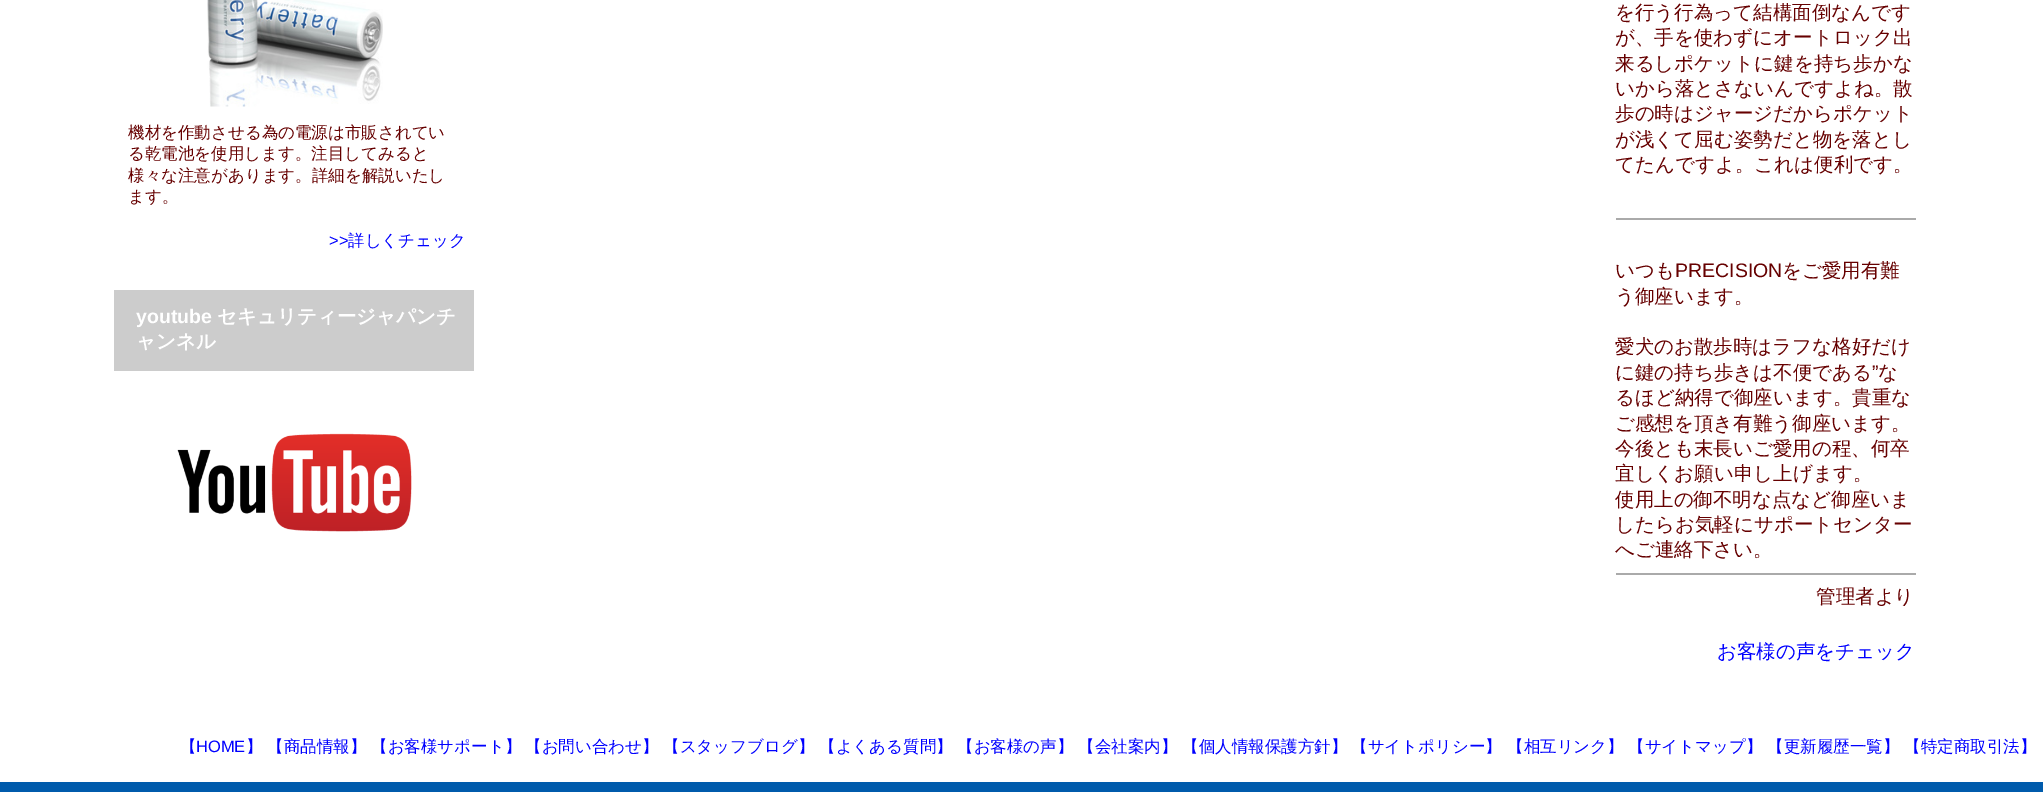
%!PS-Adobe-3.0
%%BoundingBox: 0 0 2043 792
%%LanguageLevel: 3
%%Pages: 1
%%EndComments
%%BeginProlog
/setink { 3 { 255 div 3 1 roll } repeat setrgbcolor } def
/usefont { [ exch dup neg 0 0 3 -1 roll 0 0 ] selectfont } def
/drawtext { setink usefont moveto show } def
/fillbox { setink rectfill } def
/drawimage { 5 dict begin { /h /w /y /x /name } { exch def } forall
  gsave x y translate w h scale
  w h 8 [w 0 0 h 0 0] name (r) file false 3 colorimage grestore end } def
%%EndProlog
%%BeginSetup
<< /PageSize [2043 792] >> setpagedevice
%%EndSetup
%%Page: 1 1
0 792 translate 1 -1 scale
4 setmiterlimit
0 0 2043 792 255 255 255 fillbox
(assets/img1.rgb) 207 0 176 107 drawimage
(機材を作動させる為の電源は市販されてい) 128 138 /WenQuanYiZenHei-Medium 16.5 102 0 0 drawtext
(る乾電池を使用します。注目してみると) 128 159 /WenQuanYiZenHei-Medium 16.5 102 0 0 drawtext
(様々な注意があります。詳細を解説いたし) 128 181 /WenQuanYiZenHei-Medium 16.5 102 0 0 drawtext
(ます。) 128 202 /WenQuanYiZenHei-Medium 16.5 102 0 0 drawtext
(>>) 329 246 /LiberationSans-Regular 16.5 0 0 255 drawtext
(詳しくチェック) 348 246 /WenQuanYiZenHei-Medium 16.5 0 0 255 drawtext
114 290 360 81 204 204 204 fillbox
(youtube) 136 323 /LiberationSans-Bold 19.5 255 255 255 drawtext
(セキュリティージャパンチ) 217 323 /WenQuanYiZenHei-Bold 19.5 255 255 255 drawtext
(ャンネル) 136 348 /WenQuanYiZenHei-Bold 19.5 255 255 255 drawtext
(assets/img2.rgb) 177 433 235 99 drawimage
(を行う行為って結構面倒なんです) 1615 19 /WenQuanYiZenHei-Medium 19.5 102 0 0 drawtext
(が、手を使わずにオートロック出) 1615 44 /WenQuanYiZenHei-Medium 19.5 102 0 0 drawtext
(来るしポケットに鍵を持ち歩かな) 1615 70 /WenQuanYiZenHei-Medium 19.5 102 0 0 drawtext
(いから落とさないんですよね。散) 1615 95 /WenQuanYiZenHei-Medium 19.5 102 0 0 drawtext
(歩の時はジャージだからポケット) 1615 120 /WenQuanYiZenHei-Medium 19.5 102 0 0 drawtext
(が浅くて屈む姿勢だと物を落とし) 1615 146 /WenQuanYiZenHei-Medium 19.5 102 0 0 drawtext
(てたんですよ。これは便利です。) 1615 171 /WenQuanYiZenHei-Medium 19.5 102 0 0 drawtext
1616 218 300 2 170 170 170 fillbox
(いつも) 1615 277 /WenQuanYiZenHei-Medium 19.5 102 0 0 drawtext
(PRECISION) 1675 277 /LiberationSans-Regular 19.5 102 0 0 drawtext
(をご愛用有難) 1782 277 /WenQuanYiZenHei-Medium 19.5 102 0 0 drawtext
(う御座います。) 1615 303 /WenQuanYiZenHei-Medium 19.5 102 0 0 drawtext
(愛犬のお散歩時はラフな格好だけ) 1615 353 /WenQuanYiZenHei-Medium 19.5 102 0 0 drawtext
(に鍵の持ち歩きは不便である) 1615 379 /WenQuanYiZenHei-Medium 19.5 102 0 0 drawtext
(”) 1872 379 /LiberationSans-Regular 19.5 102 0 0 drawtext
(な) 1878 379 /WenQuanYiZenHei-Medium 19.5 102 0 0 drawtext
(るほど納得で御座います。貴重な) 1615 404 /WenQuanYiZenHei-Medium 19.5 102 0 0 drawtext
(ご感想を頂き有難う御座います。) 1615 430 /WenQuanYiZenHei-Medium 19.5 102 0 0 drawtext
(今後とも末長いご愛用の程、何卒) 1615 455 /WenQuanYiZenHei-Medium 19.5 102 0 0 drawtext
(宜しくお願い申し上げます。) 1615 480 /WenQuanYiZenHei-Medium 19.5 102 0 0 drawtext
(使用上の御不明な点など御座いま) 1615 506 /WenQuanYiZenHei-Medium 19.5 102 0 0 drawtext
(したらお気軽にサポートセンター) 1615 531 /WenQuanYiZenHei-Medium 19.5 102 0 0 drawtext
(へご連絡下さい。) 1615 556 /WenQuanYiZenHei-Medium 19.5 102 0 0 drawtext
1616 573 300 2 170 170 170 fillbox
(管理者より) 1816 603 /WenQuanYiZenHei-Medium 19.5 102 0 0 drawtext
(お客様の声をチェック) 1717 658 /WenQuanYiZenHei-Medium 19.5 0 0 255 drawtext
(【) 180 752 /WenQuanYiZenHei-Medium 16.5 0 0 255 drawtext
(HOME) 196 752 /LiberationSans-Regular 16.5 0 0 255 drawtext
(】) 246 752 /WenQuanYiZenHei-Medium 16.5 0 0 255 drawtext
(【商品情報】) 267 752 /WenQuanYiZenHei-Medium 16.5 0 0 255 drawtext
(【お客様サポート】) 371 752 /WenQuanYiZenHei-Medium 16.5 0 0 255 drawtext
(【お問い合わせ】) 525 752 /WenQuanYiZenHei-Medium 16.5 0 0 255 drawtext
(【スタッフブログ】) 663 752 /WenQuanYiZenHei-Medium 16.5 0 0 255 drawtext
(【よくある質問】) 819 752 /WenQuanYiZenHei-Medium 16.5 0 0 255 drawtext
(【お客様の声】) 957 752 /WenQuanYiZenHei-Medium 16.5 0 0 255 drawtext
(【会社案内】) 1078 752 /WenQuanYiZenHei-Medium 16.5 0 0 255 drawtext
(【個人情報保護方針】) 1182 752 /WenQuanYiZenHei-Medium 16.5 0 0 255 drawtext
(【サイトポリシー】) 1351 752 /WenQuanYiZenHei-Medium 16.5 0 0 255 drawtext
(【相互リンク】) 1507 752 /WenQuanYiZenHei-Medium 16.5 0 0 255 drawtext
(【サイトマップ】) 1628 752 /WenQuanYiZenHei-Medium 16.5 0 0 255 drawtext
(【更新履歴一覧】) 1767 752 /WenQuanYiZenHei-Medium 16.5 0 0 255 drawtext
(【特定商取引法】) 1904 752 /WenQuanYiZenHei-Medium 16.5 0 0 255 drawtext
0 782 2043 10 0 91 172 fillbox
showpage
%%EOF
